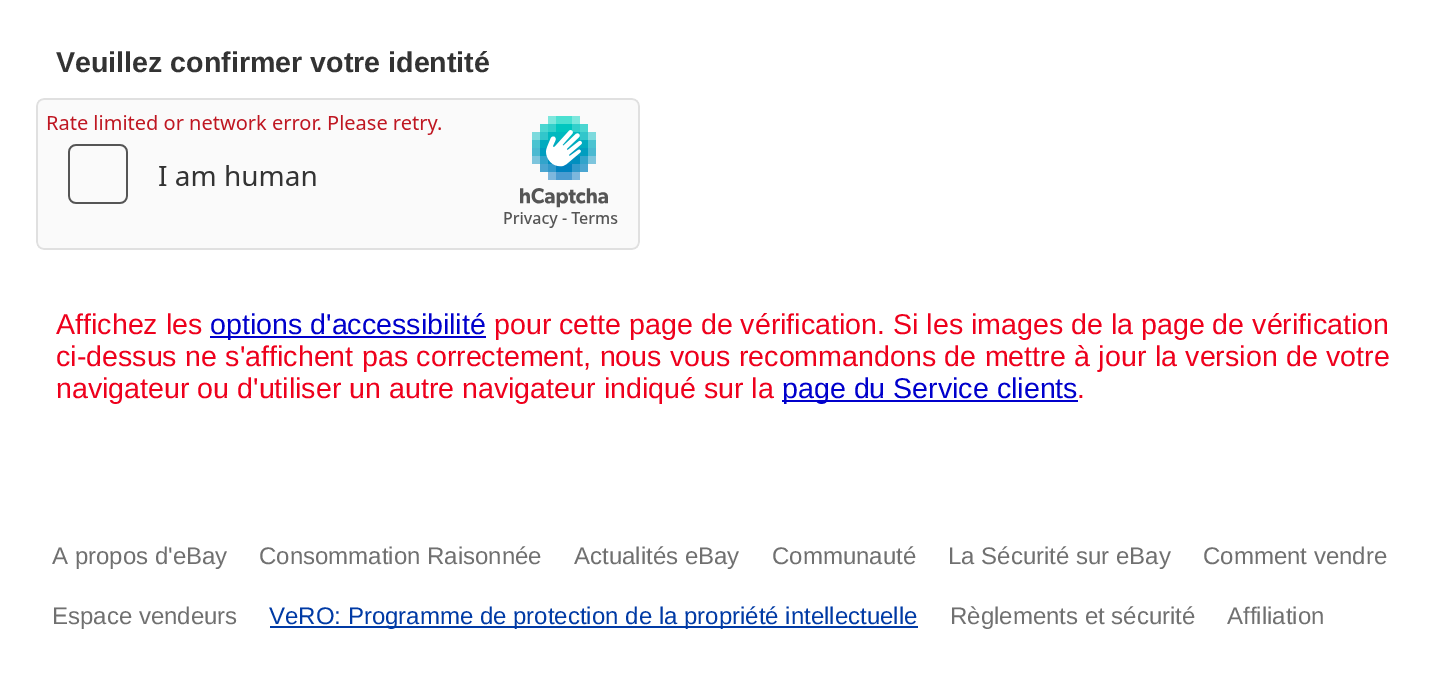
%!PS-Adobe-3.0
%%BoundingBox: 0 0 1446 678
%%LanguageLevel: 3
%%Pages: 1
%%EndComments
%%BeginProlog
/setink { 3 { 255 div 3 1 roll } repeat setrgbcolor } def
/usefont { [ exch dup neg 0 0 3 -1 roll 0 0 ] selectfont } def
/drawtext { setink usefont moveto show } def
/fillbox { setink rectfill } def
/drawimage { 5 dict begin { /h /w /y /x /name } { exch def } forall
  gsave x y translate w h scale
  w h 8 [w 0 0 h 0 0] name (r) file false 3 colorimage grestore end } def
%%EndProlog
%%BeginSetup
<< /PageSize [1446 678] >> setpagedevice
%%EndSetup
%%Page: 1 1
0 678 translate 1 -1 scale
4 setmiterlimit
0 0 1446 678 255 255 255 fillbox
(Veuillez confirmer votre identité) 56 72 /LiberationSans-Bold 28.6 51 51 51 drawtext
(assets/img1.rgb) 36 98 604 152 drawimage
(Affichez les) 56 334 /LiberationSans-Regular 28.6 238 0 28 drawtext
210 336 276 2 0 0 204 fillbox
(options d'accessibilité) 210 334 /LiberationSans-Regular 28.6 0 0 204 drawtext
(pour cette page de vérification. Si les images de la page de vérification) 494 334 /LiberationSans-Regular 28.6 238 0 28 drawtext
56 366 moveto 0.5 0 32 (ci-dessus ne s'affichent pas correctement, nous vous recommandons de mettre à jour la version de votre) widthshow
(navigateur ou d'utiliser un autre navigateur indiqué sur la) 56 398 /LiberationSans-Regular 28.6 238 0 28 drawtext
782 400 296 2 0 0 204 fillbox
(page du Service clients) 782 398 /LiberationSans-Regular 28.6 0 0 204 drawtext
(.) 1077 398 /LiberationSans-Regular 28.6 238 0 28 drawtext
(A propos d'eBay) 52 564 /LiberationSans-Regular 24 112 112 112 drawtext
(Consommation Raisonnée) 259 564 /LiberationSans-Regular 24 112 112 112 drawtext
(Actualités eBay) 574 564 /LiberationSans-Regular 24 112 112 112 drawtext
(Communauté) 772 564 /LiberationSans-Regular 24 112 112 112 drawtext
(La Sécurité sur eBay) 948 564 /LiberationSans-Regular 24 112 112 112 drawtext
(Comment vendre) 1203 564 /LiberationSans-Regular 24 112 112 112 drawtext
(Espace vendeurs) 52 624 /LiberationSans-Regular 24 112 112 112 drawtext
270 626 648 2 0 58 165 fillbox
(VeRO: Programme de protection de la propriété intellectuelle) 269 624 /LiberationSans-Regular 24 0 58 165 drawtext
(Règlements et sécurité) 950 624 /LiberationSans-Regular 24 112 112 112 drawtext
(Affiliation) 1227 624 /LiberationSans-Regular 24 112 112 112 drawtext
showpage
%%EOF
